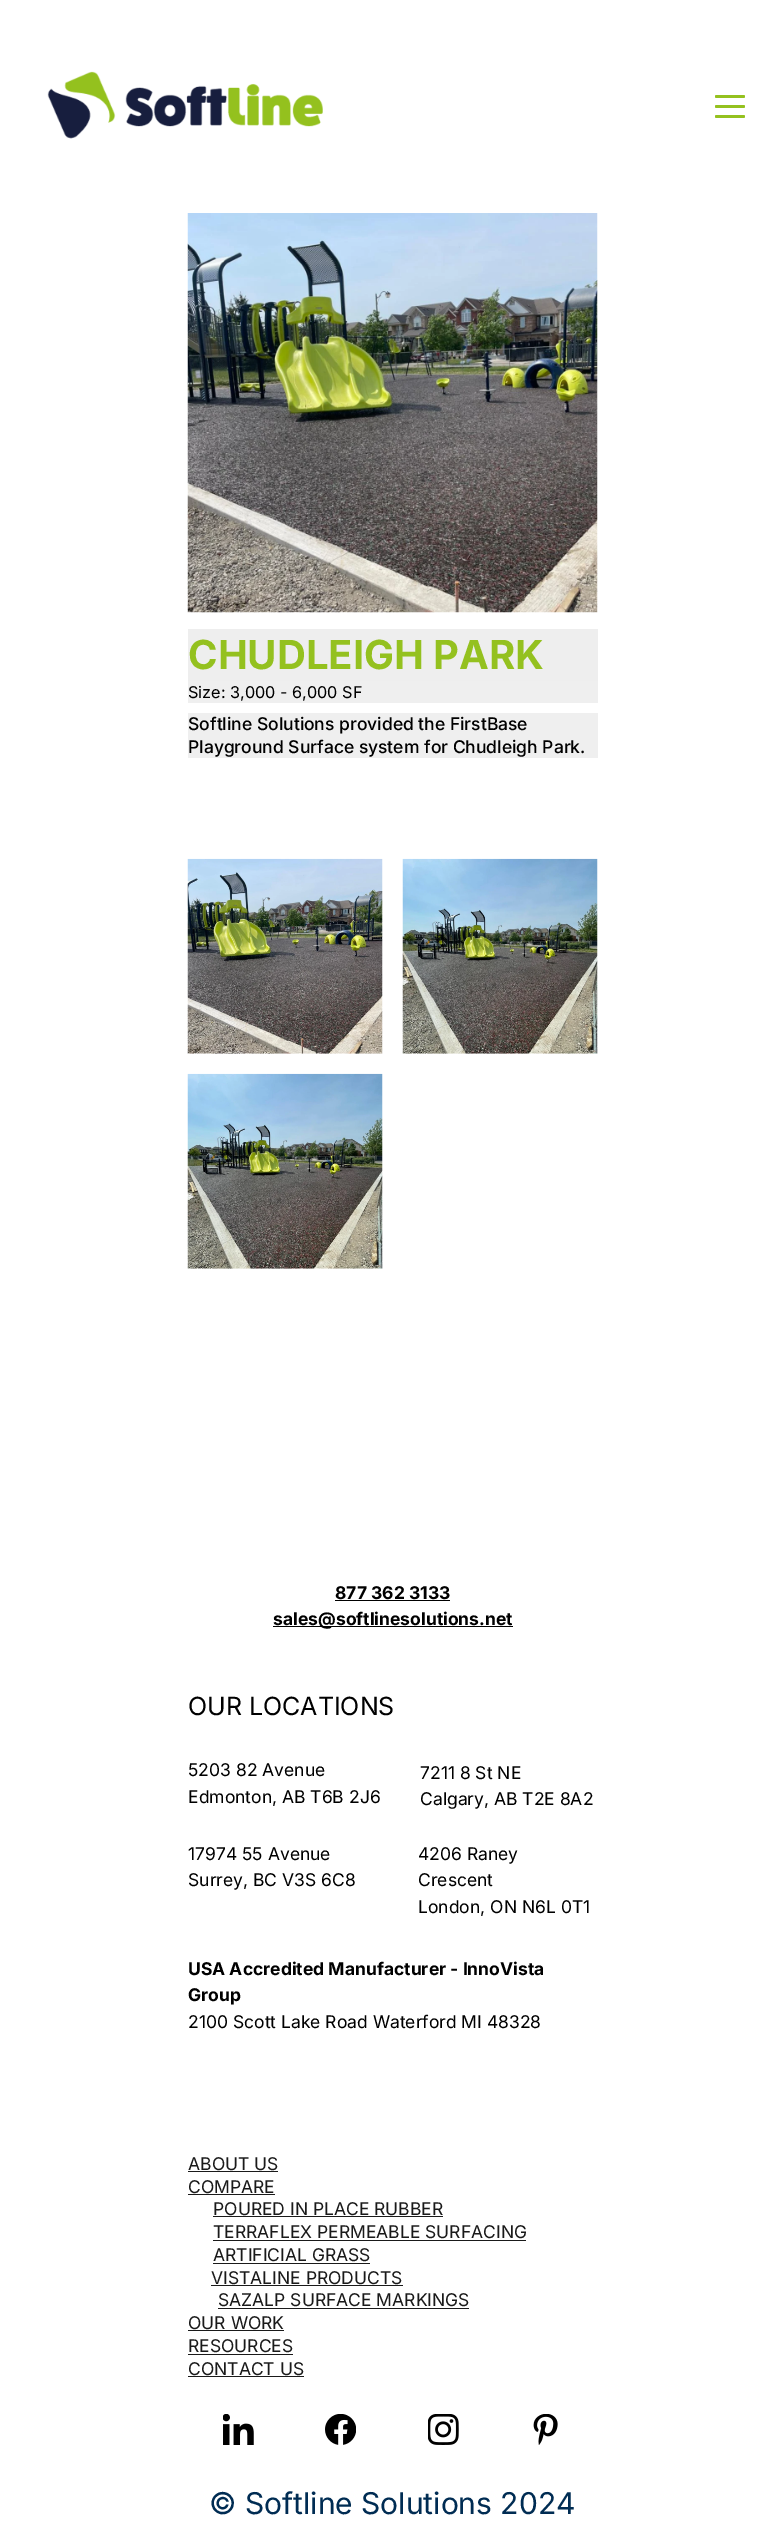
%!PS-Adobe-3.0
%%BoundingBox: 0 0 784 2538
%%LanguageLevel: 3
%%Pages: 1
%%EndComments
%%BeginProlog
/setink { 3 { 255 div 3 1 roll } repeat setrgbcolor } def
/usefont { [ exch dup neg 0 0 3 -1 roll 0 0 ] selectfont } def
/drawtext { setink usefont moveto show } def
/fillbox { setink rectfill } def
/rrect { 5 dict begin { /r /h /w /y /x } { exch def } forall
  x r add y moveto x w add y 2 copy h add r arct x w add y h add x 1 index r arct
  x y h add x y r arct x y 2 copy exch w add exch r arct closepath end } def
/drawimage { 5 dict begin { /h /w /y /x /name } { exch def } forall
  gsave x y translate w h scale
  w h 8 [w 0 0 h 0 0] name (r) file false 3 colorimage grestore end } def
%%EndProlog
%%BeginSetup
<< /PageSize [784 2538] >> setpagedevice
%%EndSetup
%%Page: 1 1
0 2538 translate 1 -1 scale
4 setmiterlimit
0 0 784 2538 255 255 255 fillbox
(assets/img1.rgb) 47 71 276 68 drawimage
148 193 31 setink
715 95 30 3 1.5 rrect fill
715 105 30 3 1.5 rrect fill
715 115 30 3 1.5 rrect fill
(assets/img2.rgb) 187 213 411 400 drawimage
188 629 410 52 238 238 238 fillbox
(CHUDLEIGH PARK) 188 669 /Inter-Bold 40 148 193 31 drawtext
188 681 410 22 239 239 239 fillbox
(Size: 3,000 - 6,000 SF) 188 698 /Inter-Regular 16.25 0 0 0 drawtext
188 713 410 45 239 239 239 fillbox
(Softline Solutions provided the FirstBase) 188 730 /Inter-Medium 17.5 0 0 0 drawtext
(Playground Surface system for Chudleigh Park.) 188 753 /Inter-Medium 17.5 0 0 0 drawtext
(assets/img3.rgb) 187 858 196 196 drawimage
(assets/img4.rgb) 402 858 196 196 drawimage
(assets/img5.rgb) 187 1073 196 196 drawimage
(877 362 3133) 335 1599 /Inter-Bold 17.5 0 0 0 drawtext
335 1600 115 1 0 0 0 fillbox
273 1626 240 1 0 0 0 fillbox
(sales@softlinesolutions.net) 273 1625 /Inter-Bold 17.5 0 0 0 drawtext
(OUR LOCATIONS) 188 1715 /Inter-Regular 25 0 0 0 drawtext
(5203 82 Avenue) 188 1776 /Inter-Regular 17.5 0 0 0 drawtext
(Edmonton, AB T6B 2J6) 188 1803 /Inter-Regular 17.5 0 0 0 drawtext
(7211 8 St NE) 420 1779 /Inter-Regular 17.5 0 0 0 drawtext
(Calgary, AB T2E 8A2) 420 1805 /Inter-Regular 17.5 0 0 0 drawtext
(17974 55 Avenue) 188 1860 /Inter-Regular 17.5 0 0 0 drawtext
(Surrey, BC V3S 6C8) 188 1886 /Inter-Regular 17.5 0 0 0 drawtext
(4206 Raney) 418 1860 /Inter-Regular 17.5 0 0 0 drawtext
(Crescent) 418 1886 /Inter-Regular 17.5 0 0 0 drawtext
(London, ON N6L 0T1) 418 1913 /Inter-Regular 17.5 0 0 0 drawtext
(USA Accredited Manufacturer - InnoVista) 188 1975 /Inter-Bold 17.5 0 0 0 drawtext
(Group) 188 2001 /Inter-Bold 17.5 0 0 0 drawtext
(2100 Scott Lake Road Waterford MI 48328) 188 2028 /Inter-Regular 17.5 0 0 0 drawtext
(ABOUT US) 188 2170 /Inter-Regular 17.5 26 26 26 drawtext
188 2171 90 1 26 26 26 fillbox
(COMPARE) 188 2193 /Inter-Regular 17.5 26 26 26 drawtext
188 2194 87 1 26 26 26 fillbox
(POURED IN PLACE RUBBER) 213 2215 /Inter-Regular 17.5 26 26 26 drawtext
213 2216 230 1 26 26 26 fillbox
(TERRAFLEX PERMEABLE SURFACING) 213 2238 /Inter-Regular 17.5 26 26 26 drawtext
213 2240 313 1 26 26 26 fillbox
(ARTIFICIAL GRASS) 213 2261 /Inter-Regular 17.5 26 26 26 drawtext
213 2263 157 1 26 26 26 fillbox
(VISTALINE PRODUCTS) 211 2284 /Inter-Regular 17.5 26 26 26 drawtext
211 2285 192 1 26 26 26 fillbox
(SAZALP SURFACE MARKINGS) 218 2306 /Inter-Regular 17.5 26 26 26 drawtext
218 2308 251 1 26 26 26 fillbox
(OUR WORK) 188 2329 /Inter-Regular 17.5 26 26 26 drawtext
188 2330 96 1 26 26 26 fillbox
(RESOURCES) 188 2352 /Inter-Regular 17.5 26 26 26 drawtext
188 2354 105 1 26 26 26 fillbox
(CONTACT US) 188 2375 /Inter-Regular 17.5 26 26 26 drawtext
188 2376 116 1 26 26 26 fillbox
(assets/img6.rgb) 223 2414 31 31 drawimage
(assets/img7.rgb) 325 2414 31 31 drawimage
(assets/img8.rgb) 428 2414 31 31 drawimage
(assets/img9.rgb) 533 2414 25 31 drawimage
(© Softline Solutions 2024) 209 2514 /Inter-Regular 30 0 44 83 drawtext
showpage
%%EOF
